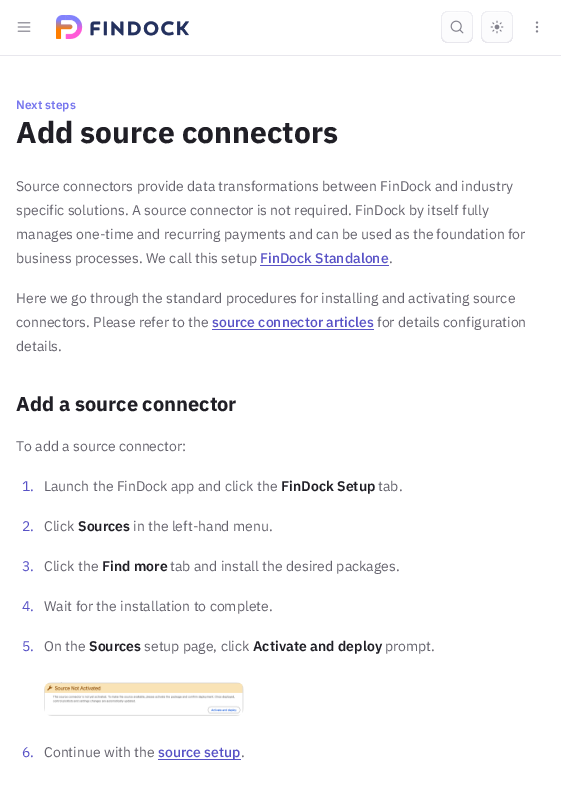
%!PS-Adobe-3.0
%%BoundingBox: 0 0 561 810
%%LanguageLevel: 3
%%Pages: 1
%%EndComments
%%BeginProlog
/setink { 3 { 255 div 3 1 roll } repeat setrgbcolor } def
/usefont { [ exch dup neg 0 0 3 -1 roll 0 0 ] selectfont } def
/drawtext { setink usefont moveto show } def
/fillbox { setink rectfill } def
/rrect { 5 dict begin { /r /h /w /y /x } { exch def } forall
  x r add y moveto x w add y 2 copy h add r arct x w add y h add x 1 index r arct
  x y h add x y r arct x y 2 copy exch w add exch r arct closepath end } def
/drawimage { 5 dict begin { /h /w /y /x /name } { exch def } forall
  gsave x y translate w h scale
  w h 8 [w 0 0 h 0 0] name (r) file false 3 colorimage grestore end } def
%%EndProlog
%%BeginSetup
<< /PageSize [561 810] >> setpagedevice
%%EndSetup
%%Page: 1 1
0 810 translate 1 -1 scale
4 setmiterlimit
0 0 561 810 255 255 255 fillbox
0 55 561 1 232 231 237 fillbox
(assets/img1.rgb) 17 22 14 10 drawimage
(assets/img2.rgb) 56 15 133 24 drawimage
gsave 441 11 32 32 8 rrect clip newpath
<< /ShadingType 2 /ColorSpace /DeviceRGB /Coords [457 11 457 43] /Extend [true true] /Function << /FunctionType 2 /Domain [0 1] /C0 [0.941 0.941 0.957] /C1 [0.91 0.906 0.929] /N 1 >> >> shfill grestore
252 252 253 setink
442 12 30 30 7 rrect fill
254 254 254 setink
449 13 moveto 465 13 lineto 469 13 472 16 472 20 curveto 472 10.5 464 12 457 12 curveto 450 12 442 10.5 442 20 curveto 442 16 445 13 449 13 curveto closepath fill
(assets/img3.rgb) 450 20 14 14 drawimage
gsave 481 11 32 32 8 rrect clip newpath
<< /ShadingType 2 /ColorSpace /DeviceRGB /Coords [497 11 497 43] /Extend [true true] /Function << /FunctionType 2 /Domain [0 1] /C0 [0.941 0.941 0.957] /C1 [0.91 0.906 0.929] /N 1 >> >> shfill grestore
252 252 253 setink
482 12 30 30 7 rrect fill
254 254 254 setink
489 13 moveto 505 13 lineto 509 13 512 16 512 20 curveto 512 10.5 504 12 497 12 curveto 490 12 482 10.5 482 20 curveto 482 16 485 13 489 13 curveto closepath fill
(assets/img4.rgb) 490 20 14 14 drawimage
(assets/img5.rgb) 535 21 4 12 drawimage
(Next steps) 16 109 /IBMPlexSans-SemiBold 12 120 119 238 drawtext
(Add source connectors) 16 143 /IBMPlexSans-Bold 30 32 31 38 drawtext
(Source connectors provide data transformations between FinDock and industry) 16 191 /IBMPlexSans-Regular 14 101 99 109 drawtext
(specific solutions. A source connector is not required. FinDock by itself fully) 16 215 /IBMPlexSans-Regular 14 101 99 109 drawtext
(manages one-time and recurring payments and can be used as the foundation for) 16 239 /IBMPlexSans-Regular 14 101 99 109 drawtext
(business processes. We call this setup) 16 263 /IBMPlexSans-Regular 14 101 99 109 drawtext
(FinDock Standalone) 260 263 /IBMPlexSans-Medium 14 88 82 198 drawtext
260 265 129 1 88 82 198 fillbox
(.) 389 263 /IBMPlexSans-Regular 14 101 99 109 drawtext
(Here we go through the standard procedures for installing and activating source) 16 303 /IBMPlexSans-Regular 14 101 99 109 drawtext
(connectors. Please refer to the) 16 327 /IBMPlexSans-Regular 14 101 99 109 drawtext
(source connector articles) 212 327 /IBMPlexSans-Medium 14 88 82 198 drawtext
212 329 162 1 88 82 198 fillbox
(for details configuration) 377 327 /IBMPlexSans-Regular 14 101 99 109 drawtext
(details.) 16 351 /IBMPlexSans-Regular 14 101 99 109 drawtext
(Add a source connector) 16 411 /IBMPlexSans-Bold 20 32 31 38 drawtext
(To add a source connector:) 16 451 /IBMPlexSans-Regular 14 101 99 109 drawtext
(1.) 22 491 /IBMPlexSans-Regular 14 88 82 198 drawtext
(Launch the FinDock app and click the) 44 491 /IBMPlexSans-Regular 14 101 99 109 drawtext
(FinDock Setup) 281 491 /IBMPlexSans-SemiBold 14 32 31 38 drawtext
(tab.) 378 491 /IBMPlexSans-Regular 14 101 99 109 drawtext
(2.) 22 531 /IBMPlexSans-Regular 14 88 82 198 drawtext
(Click) 44 531 /IBMPlexSans-Regular 14 101 99 109 drawtext
(Sources) 78 531 /IBMPlexSans-SemiBold 14 32 31 38 drawtext
(in the left-hand menu.) 133 531 /IBMPlexSans-Regular 14 101 99 109 drawtext
(3.) 22 571 /IBMPlexSans-Regular 14 88 82 198 drawtext
(Click the) 44 571 /IBMPlexSans-Regular 14 101 99 109 drawtext
(Find more) 102 571 /IBMPlexSans-SemiBold 14 32 31 38 drawtext
(tab and install the desired packages.) 170 571 /IBMPlexSans-Regular 14 101 99 109 drawtext
(4.) 22 611 /IBMPlexSans-Regular 14 88 82 198 drawtext
(Wait for the installation to complete.) 44 611 /IBMPlexSans-Regular 14 101 99 109 drawtext
(5.) 22 651 /IBMPlexSans-Regular 14 88 82 198 drawtext
(On the) 44 651 /IBMPlexSans-Regular 14 101 99 109 drawtext
(Sources) 89 651 /IBMPlexSans-SemiBold 14 32 31 38 drawtext
(setup page, click) 144 651 /IBMPlexSans-Regular 14 101 99 109 drawtext
(Activate and deploy) 253 651 /IBMPlexSans-SemiBold 14 32 31 38 drawtext
(prompt.) 385 651 /IBMPlexSans-Regular 14 101 99 109 drawtext
(assets/img6.rgb) 44 682 200 34 drawimage
(6.) 22 757 /IBMPlexSans-Regular 14 88 82 198 drawtext
(Continue with the) 44 757 /IBMPlexSans-Regular 14 101 99 109 drawtext
158 759 83 1 88 82 198 fillbox
(source setup) 158 757 /IBMPlexSans-Medium 14 88 82 198 drawtext
(.) 241 757 /IBMPlexSans-Regular 14 101 99 109 drawtext
showpage
%%EOF
